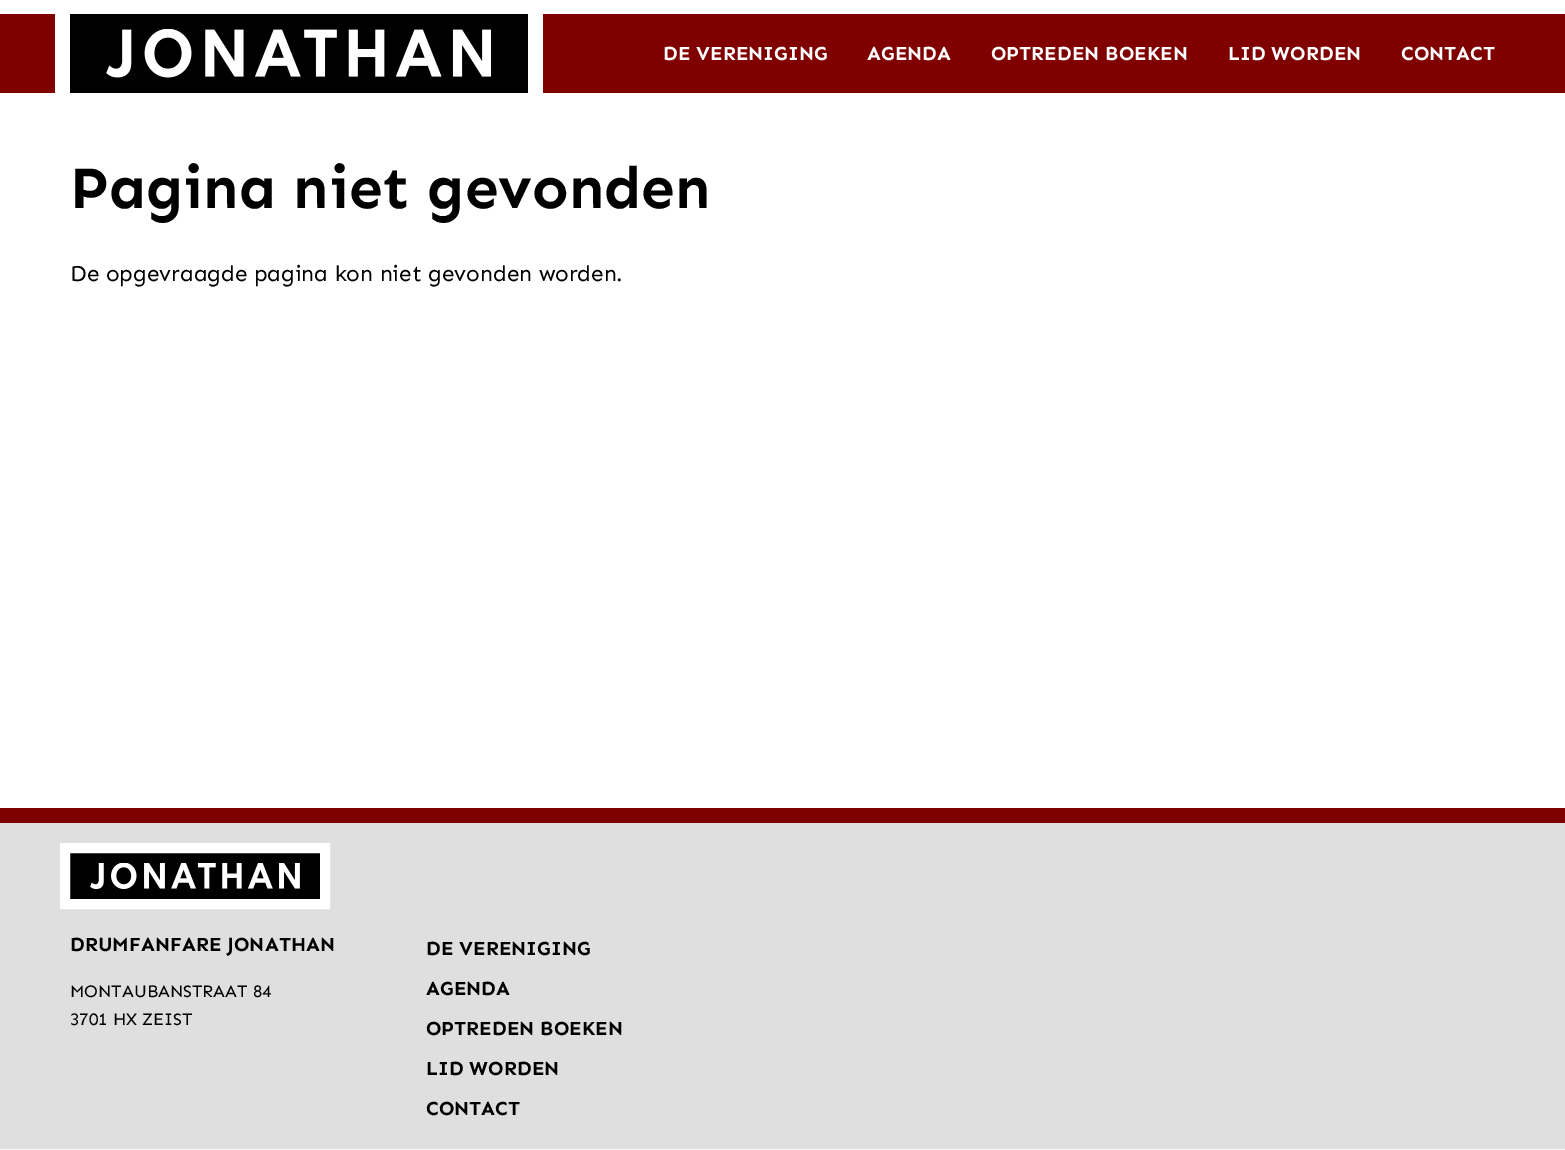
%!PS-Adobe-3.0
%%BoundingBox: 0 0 1565 1150
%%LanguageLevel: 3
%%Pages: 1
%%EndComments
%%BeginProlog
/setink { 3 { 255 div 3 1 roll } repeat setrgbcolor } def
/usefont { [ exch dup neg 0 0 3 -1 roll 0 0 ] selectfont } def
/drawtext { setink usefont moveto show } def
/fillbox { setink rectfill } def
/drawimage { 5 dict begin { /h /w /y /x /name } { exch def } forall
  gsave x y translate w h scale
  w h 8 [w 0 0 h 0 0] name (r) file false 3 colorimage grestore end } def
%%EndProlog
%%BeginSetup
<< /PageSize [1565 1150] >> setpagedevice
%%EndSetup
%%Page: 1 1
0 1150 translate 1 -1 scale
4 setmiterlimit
0 0 1565 1150 255 255 255 fillbox
0 14 1565 79 128 0 0 fillbox
70 14 458 79 0 0 0 fillbox
528 14 15 79 255 255 255 fillbox
55 14 15 79 255 255 255 fillbox
(assets/img1.rgb) 106 29 385 49 drawimage
(DE VERENIGING) 663 60 /Sen-Bold 20 255 255 255 drawtext
(AGENDA) 867 60 /Sen-Bold 20 255 255 255 drawtext
(OPTREDEN BOEKEN) 991 60 /Sen-Bold 20 255 255 255 drawtext
(LID WORDEN) 1228 60 /Sen-Bold 20 255 255 255 drawtext
(CONTACT) 1401 60 /Sen-Bold 20 255 255 255 drawtext
(Pagina niet gevonden) 70 208 /Sen-Bold 60 0 0 0 drawtext
(De opgevraagde pagina kon niet gevonden worden.) 70 281 /Sen-Regular 22.5 0 0 0 drawtext
0 823 1565 326 223 223 223 fillbox
0 808 1565 15 128 0 0 fillbox
0 0 0 setink
65 848 moveto 325 848 lineto 325 904 lineto 65 904 lineto closepath gsave fill grestore
255 255 255 setink
10 setlinewidth
stroke
(assets/img2.rgb) 90 863 210 26 drawimage
(DRUMFANFARE JONATHAN) 70 951 /Sen-Bold 20 0 0 0 drawtext
(MONTAUBANSTRAAT 84) 70 997 /Sen-Regular 17.5 0 0 0 drawtext
(3701 HX ZEIST) 70 1025 /Sen-Regular 17.5 0 0 0 drawtext
(DE VERENIGING) 426 955 /Sen-Bold 20 0 0 0 drawtext
(AGENDA) 426 995 /Sen-Bold 20 0 0 0 drawtext
(OPTREDEN BOEKEN) 426 1035 /Sen-Bold 20 0 0 0 drawtext
(LID WORDEN) 426 1075 /Sen-Bold 20 0 0 0 drawtext
(CONTACT) 426 1115 /Sen-Bold 20 0 0 0 drawtext
showpage
%%EOF
